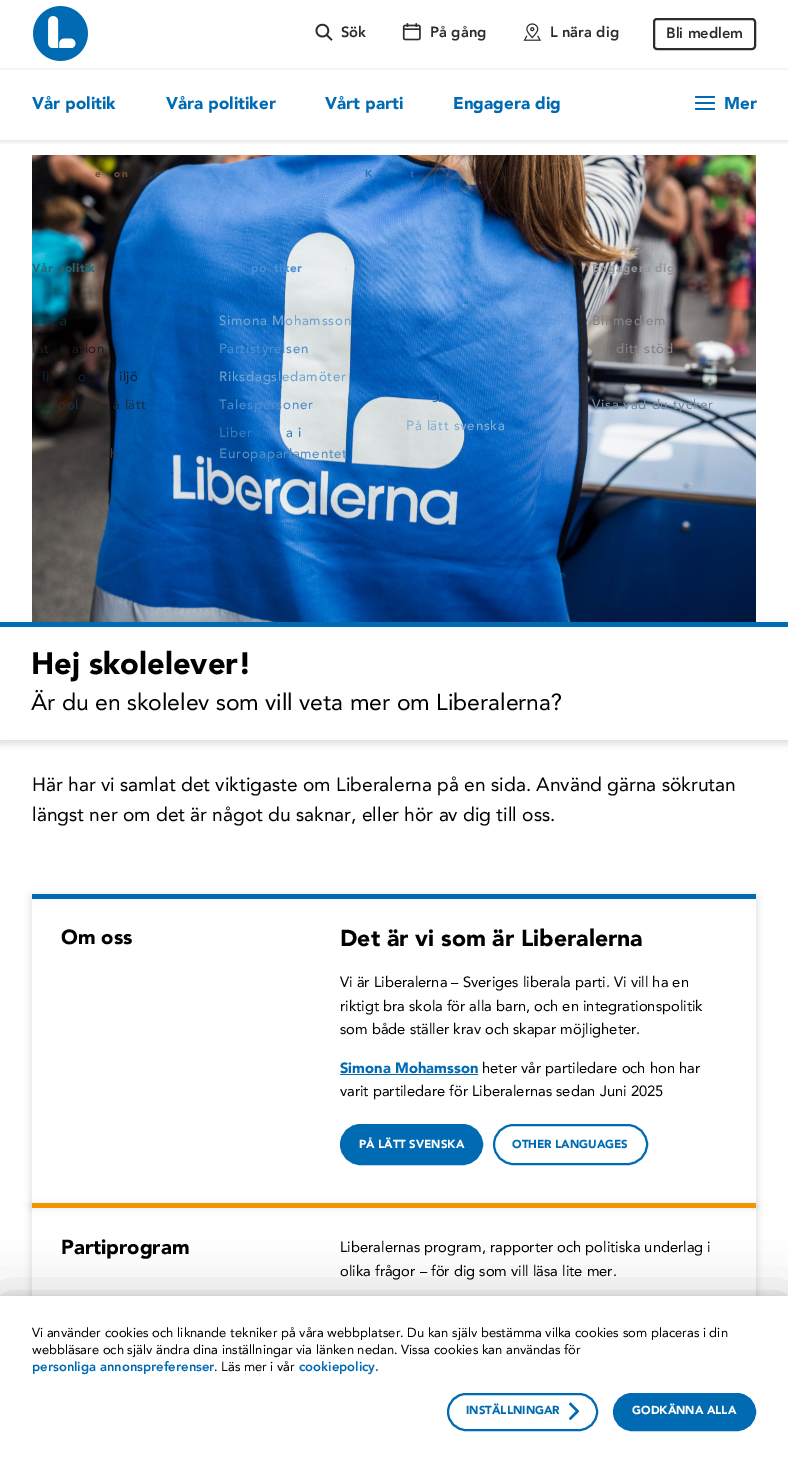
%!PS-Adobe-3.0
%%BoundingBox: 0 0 788 1462
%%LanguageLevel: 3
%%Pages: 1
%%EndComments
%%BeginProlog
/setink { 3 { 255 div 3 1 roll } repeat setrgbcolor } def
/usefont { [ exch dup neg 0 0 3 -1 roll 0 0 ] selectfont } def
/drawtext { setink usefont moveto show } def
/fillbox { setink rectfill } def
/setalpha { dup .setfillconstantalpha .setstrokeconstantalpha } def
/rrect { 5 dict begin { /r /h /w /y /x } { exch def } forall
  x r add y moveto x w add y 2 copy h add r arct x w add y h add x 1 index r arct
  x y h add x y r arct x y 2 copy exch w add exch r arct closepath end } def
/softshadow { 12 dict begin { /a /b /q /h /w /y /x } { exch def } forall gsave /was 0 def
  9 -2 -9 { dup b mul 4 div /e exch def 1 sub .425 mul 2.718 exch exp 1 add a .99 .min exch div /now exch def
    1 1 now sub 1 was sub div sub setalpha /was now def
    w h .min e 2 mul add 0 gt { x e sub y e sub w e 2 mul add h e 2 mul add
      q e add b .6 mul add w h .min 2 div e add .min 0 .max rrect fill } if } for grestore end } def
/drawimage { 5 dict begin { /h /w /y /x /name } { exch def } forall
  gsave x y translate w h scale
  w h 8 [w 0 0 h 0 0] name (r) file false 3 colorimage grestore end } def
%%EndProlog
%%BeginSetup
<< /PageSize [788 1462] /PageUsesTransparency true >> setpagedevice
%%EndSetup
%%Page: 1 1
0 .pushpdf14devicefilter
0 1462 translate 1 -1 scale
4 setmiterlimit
0 0 788 1462 255 255 255 fillbox
gsave
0 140 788 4 rectclip
0 0 0 setink
0 0 788 140 0 3 0.2 softshadow
grestore
0 68 788 2 245 245 245 fillbox
(assets/img1.rgb) 33 6 55 55 drawimage
(assets/img2.rgb) 315 23 18 18 drawimage
(Sök) 341 37 /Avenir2-Black 14.75 43 43 48 drawtext
(assets/img3.rgb) 402 23 19 18 drawimage
(På gång) 430 37 /Avenir2-Black 14.75 43 43 48 drawtext
(assets/img4.rgb) 523 23 18 18 drawimage
(L nära dig) 550 37 /Avenir2-Black 14.75 43 43 48 drawtext
2 setlinewidth
654 19 101 30 3 rrect stroke
(Bli medlem) 666 38 /Avenir2-Black 14.75 43 43 48 drawtext
(Vår politik) 32 109 /Avenir-Black 17 0 106 179 drawtext
(Våra politiker) 166 109 /Avenir-Black 17 0 106 179 drawtext
(Vårt parti) 325 109 /Avenir-Black 17 0 106 179 drawtext
(Engagera dig) 453 109 /Avenir-Black 17 0 106 179 drawtext
695 102 20 2 1 rrect fill
695 96 20 2 1 rrect fill
695 108 20 2 1 rrect fill
(Mer) 724 109 /Avenir-Black 17 0 106 179 drawtext
(assets/img5.rgb) 32 155 724 467 drawimage
/Avenir-Black 10 usefont
113 78 56 setink
95 177 moveto 2 0 (e) ashow
114 177 moveto 2 0 (on) ashow
33 114 196 setink
365 177 moveto 2 0 (K) ashow
410 177 moveto 2 0 (t) ashow
/Avenir-Black 11.75 usefont
34 104 118 setink
32 272 moveto 0.5 0 (Vår politik) ashow
/Avenir-Medium 13.25 usefont
9 49 62 setink
60 325 moveto 0.75 0 (a) ashow
36 27 26 setink
32 353 moveto 0.5 0 (Int) ashow
72 353 moveto 0.5 0 (ation) ashow
13 34 57 setink
42 381 moveto 0.5 0 (li) ashow
78 381 moveto 0.5 0 (o) ashow
119 381 moveto 0.5 0 (iljö) ashow
24 47 69 setink
58 409 moveto 0.5 0 (pol) ashow
113 409 moveto 0.5 0 (å lätt) ashow
61 61 63 setink
110 458 moveto 1 0 (h) ashow
/Avenir-Black 11.75 usefont
71 143 212 setink
251 272 moveto 0.5 0 (po) ashow
274 272 moveto 0.5 0 (tiker) ashow
/Avenir-Medium 13.25 usefont
113 164 208 setink
219 325 moveto 0.8 0 (Simona Mohamsson) ashow
78 144 207 setink
219 353 moveto 0.6 0 (Partistyrelsen) ashow
113 164 208 setink
219 381 moveto 0.75 0 (Riksdagsledamöter) ashow
79 140 200 setink
219 409 moveto 0.75 0 (Talespersoner) ashow
56 122 190 setink
219 437 moveto 0.5 0 (Liber) ashow
286 437 moveto 0.5 0 (a i) ashow
88 142 194 setink
219 458 moveto 0.75 0 (Europaparlamentet) ashow
33 114 196 setink
432 402 moveto 0.5 0 (sk) ashow
131 174 212 setink
406 430 moveto 0.7 0 (På lätt svenska) ashow
/Avenir-Black 11.75 usefont
147 149 153 setink
592 272 moveto 0.75 0 (Engagera dig) ashow
/Avenir-Medium 13.25 usefont
132 130 130 setink
592 325 moveto 0.75 0 (Bli medlem) ashow
616 353 moveto 0.7 0 (ditt stöd) ashow
122 139 158 setink
592 409 moveto 0.7 0 (Visa vad du tycker) ashow
gsave
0 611 moveto 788 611 lineto 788 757 lineto 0 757 lineto closepath 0 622 moveto 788 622 lineto 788 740 lineto 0 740 lineto closepath eoclip newpath
0 0 0 setink
-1 624 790 120 0 4 0.14 softshadow
grestore
0 622 788 5 0 106 179 fillbox
(Hej skolelever!) 31 674 /Avenir-Black 30.75 0 0 0 drawtext
(Är du en skolelev som vill veta mer om Liberalerna?) 31 710 /Avenir-Regular 23 0 0 0 drawtext
(Här har vi samlat det viktigaste om Liberalerna på en sida. Använd gärna sökrutan) 32 791 /Avenir-Regular 19.2 0 0 0 drawtext
(längst ner om det är något du saknar, eller hör av dig till oss.) 32 821 /Avenir-Regular 19.2 0 0 0 drawtext
gsave
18 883 moveto 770 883 lineto 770 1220 lineto 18 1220 lineto closepath 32 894 moveto 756 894 lineto 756 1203 lineto 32 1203 lineto closepath eoclip newpath
31 896 726 311 0 4 0.14 softshadow
grestore
32 894 724 5 0 106 179 fillbox
(Om oss) 61 944 /Avenir-Black 20.25 0 0 0 drawtext
(Det är vi som är Liberalerna) 340 946 /Avenir-Black 23 0 0 0 drawtext
(Vi är Liberalerna – Sveriges liberala parti. Vi vill ha en) 340 987 /Avenir-Regular 14.75 0 0 0 drawtext
(riktigt bra skola för alla barn, och en integrationspolitik) 340 1011 /Avenir-Regular 14.75 0 0 0 drawtext
(som både ställer krav och skapar möjligheter.) 340 1034 /Avenir-Regular 14.75 0 0 0 drawtext
(Simona Mohamsson) 340 1073 /Avenir-Black 14.75 0 106 179 drawtext
340 1074 138 1 0 106 179 fillbox
(heter vår partiledare och hon har) 482 1073 /Avenir-Regular 14.75 0 0 0 drawtext
(varit partiledare för Liberalernas sedan Juni 2025) 340 1096 /Avenir-Regular 14.75 0 0 0 drawtext
0 106 179 setink
341 1125 141 39 19.5 rrect gsave fill grestore
stroke
(PÅ LÄTT SVENSKA) 359 1148 /Avenir-Black 11.5 255 255 255 drawtext
0 106 179 setink
494 1125 153 39 19.5 rrect stroke
(OTHER LANGUAGES) 512 1148 /Avenir-Black 11.5 0 106 179 drawtext
gsave
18 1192 moveto 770 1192 lineto 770 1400 lineto 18 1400 lineto closepath 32 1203 moveto 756 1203 lineto 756 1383 lineto 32 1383 lineto closepath eoclip newpath
0 0 0 setink
31 1205 726 182 0 4 0.14 softshadow
grestore
32 1203 724 5 242 148 0 fillbox
(Partiprogram) 61 1254 /Avenir-Black 20.25 0 0 0 drawtext
(Liberalernas program, rapporter och politiska underlag i) 340 1252 /Avenir-Regular 14.75 0 0 0 drawtext
(olika frågor – för dig som vill läsa lite mer.) 340 1276 /Avenir-Regular 14.75 0 0 0 drawtext
0 1296 788 166 0 5 0.12 softshadow
0 1296 788 166 0 25 0.2 softshadow
0 1296 788 166 255 255 255 fillbox
(Vi använder cookies och liknande tekniker på våra webbplatser. Du kan själv bestämma vilka cookies som placeras i din) 32 1337 /Avenir-Regular 13.05 0 0 0 drawtext
(webbläsare och själv ändra dina inställningar via länken nedan. Vissa cookies kan användas för) 32 1354 /Avenir-Regular 13.05 0 0 0 drawtext
(personliga annonspreferenser) 32 1371 /Avenir2-Black 13.05 0 106 179 drawtext
(. Läs mer i vår) 214 1371 /Avenir-Regular 13.05 0 0 0 drawtext
(cookiepolicy.) 299 1371 /Avenir2-Black 13.05 0 106 179 drawtext
448 1394 149 36 18 rrect stroke
(INSTÄLLNINGAR) 466 1414 /Avenir-Black 11.5 0 106 179 drawtext
(assets/img6.rgb) 569 1402 10 18 drawimage
614 1394 141 36 18 rrect gsave fill grestore
stroke
(GODKÄNNA ALLA) 632 1414 /Avenir-Black 11.5 255 255 255 drawtext
.poppdf14devicefilter showpage
%%EOF
